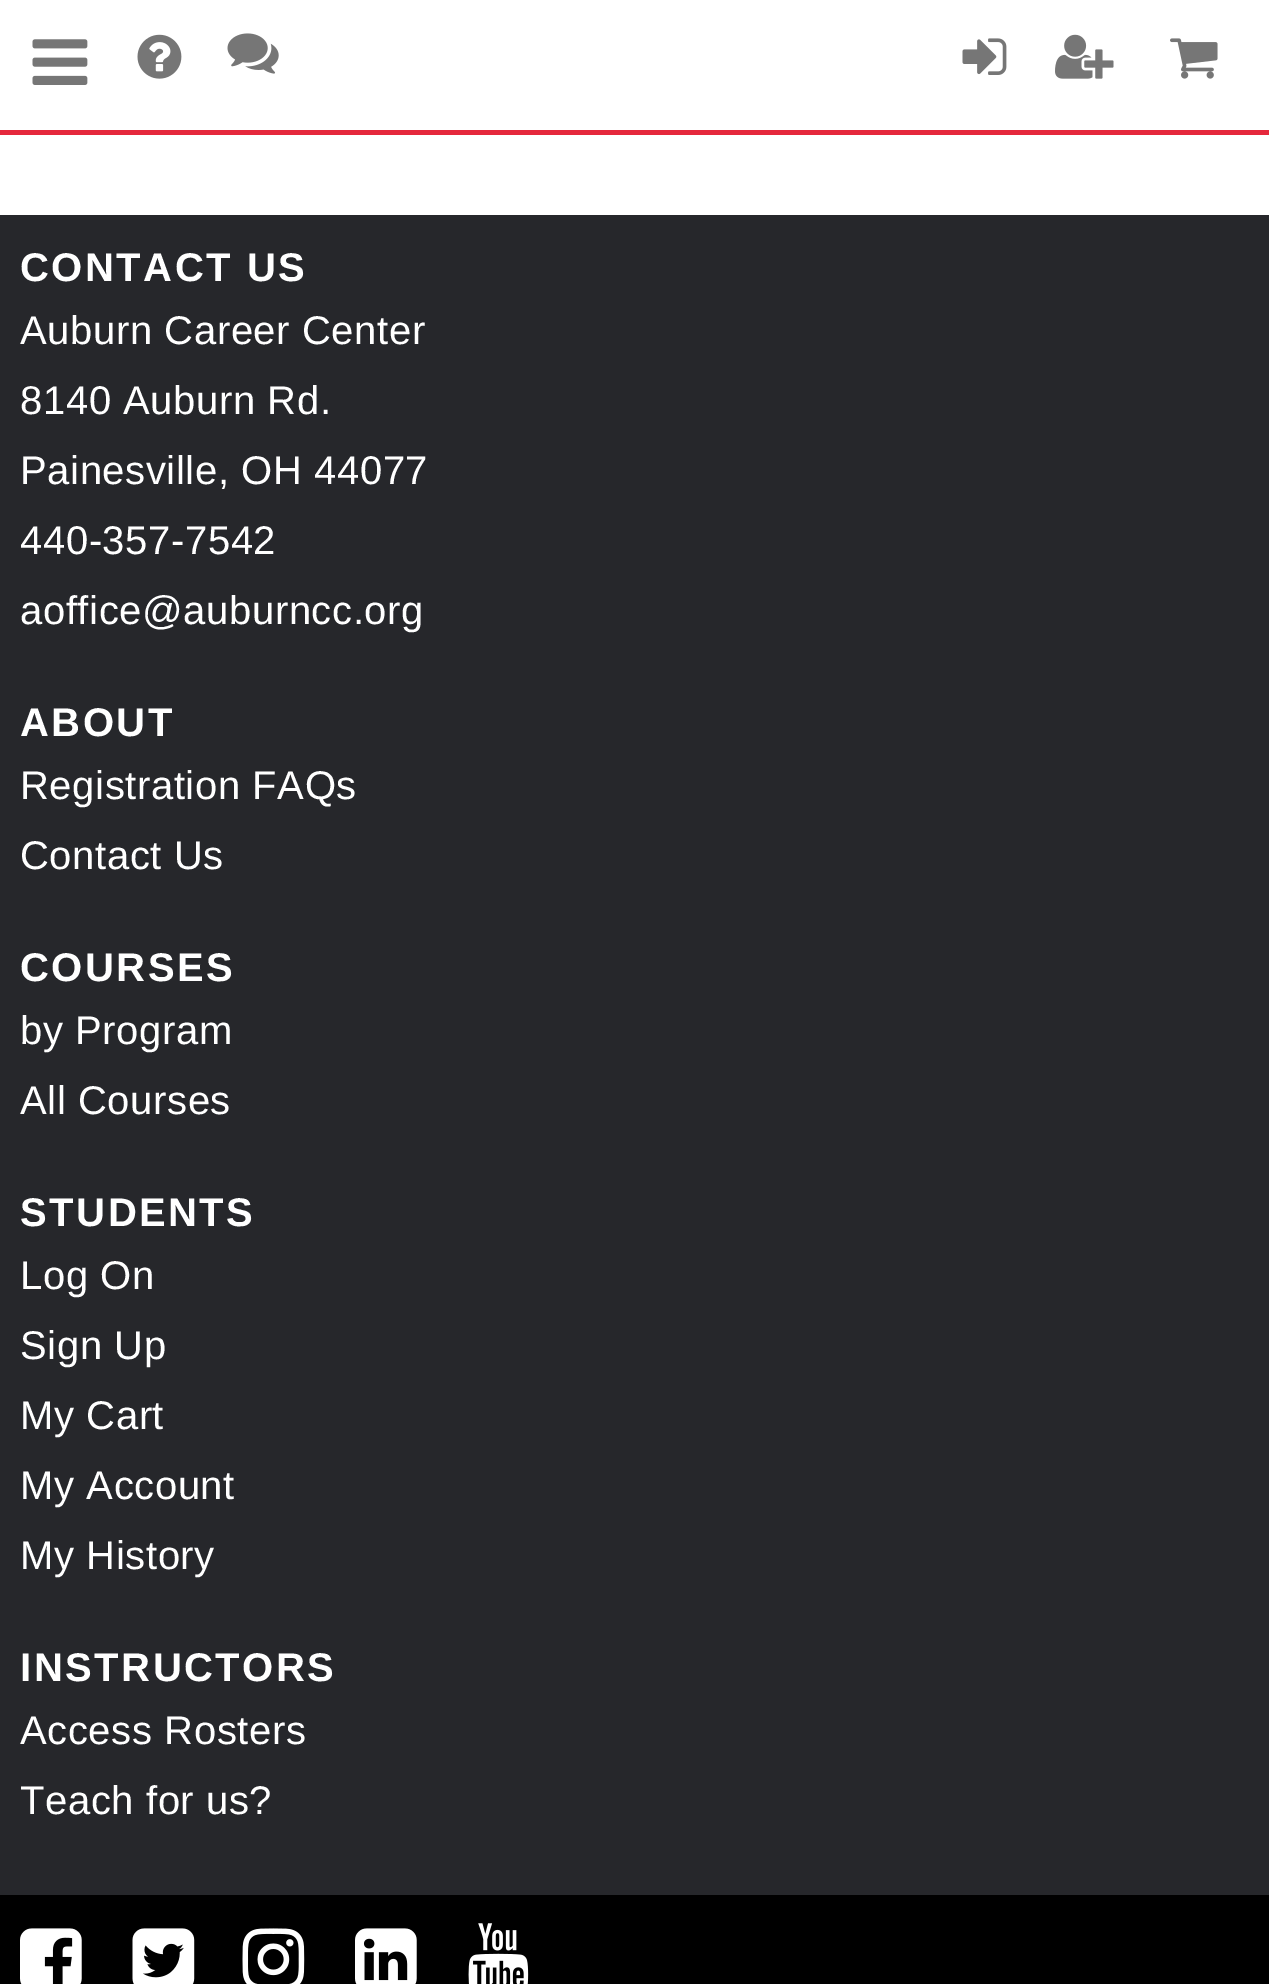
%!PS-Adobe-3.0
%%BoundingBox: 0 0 1269 1984
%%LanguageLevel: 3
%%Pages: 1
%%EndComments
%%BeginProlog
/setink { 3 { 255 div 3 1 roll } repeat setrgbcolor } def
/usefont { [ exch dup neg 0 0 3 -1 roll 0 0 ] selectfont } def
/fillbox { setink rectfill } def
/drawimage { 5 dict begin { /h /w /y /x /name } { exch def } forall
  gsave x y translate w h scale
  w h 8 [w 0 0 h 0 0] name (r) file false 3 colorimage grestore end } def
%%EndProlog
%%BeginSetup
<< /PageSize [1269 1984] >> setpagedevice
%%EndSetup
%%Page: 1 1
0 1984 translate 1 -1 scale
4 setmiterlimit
0 0 1269 1984 255 255 255 fillbox
0 130 1269 5 229 40 60 fillbox
(assets/img1.rgb) 32 39 56 46 drawimage
(assets/img2.rgb) 137 34 45 45 drawimage
(assets/img3.rgb) 227 33 52 41 drawimage
(assets/img4.rgb) 962 38 45 37 drawimage
(assets/img5.rgb) 1055 34 59 45 drawimage
(assets/img6.rgb) 1170 38 48 41 drawimage
0 215 1269 1680 38 39 43 fillbox
/LiberationSans-Bold 40 usefont
255 255 255 setink
20 281 moveto 2.5 0 (CONTACT US) ashow
/LiberationSans-Regular 40 usefont
20 344 moveto 0.6 0 (Auburn Career Center) ashow
20 414 moveto 0.6 0 (8140 Auburn Rd.) ashow
20 484 moveto 0.6 0 (Painesville, OH 44077) ashow
20 554 moveto 0.6 0 (440-357-7542) ashow
20 624 moveto 0.6 0 (aoffice@auburncc.org) ashow
/LiberationSans-Bold 40 usefont
20 736 moveto 2.5 0 (ABOUT) ashow
/LiberationSans-Regular 40 usefont
20 799 moveto 0.6 0 (Registration FAQs) ashow
20 869 moveto 0.6 0 (Contact Us) ashow
/LiberationSans-Bold 40 usefont
20 981 moveto 2.5 0 (COURSES) ashow
/LiberationSans-Regular 40 usefont
20 1044 moveto 0.6 0 (by Program) ashow
20 1114 moveto 0.6 0 (All Courses) ashow
/LiberationSans-Bold 40 usefont
20 1226 moveto 2.5 0 (STUDENTS) ashow
/LiberationSans-Regular 40 usefont
20 1289 moveto 0.6 0 (Log On) ashow
20 1359 moveto 0.6 0 (Sign Up) ashow
20 1429 moveto 0.6 0 (My Cart) ashow
20 1499 moveto 0.6 0 (My Account) ashow
20 1569 moveto 0.6 0 (My History) ashow
/LiberationSans-Bold 40 usefont
20 1681 moveto 2.5 0 (INSTRUCTORS) ashow
/LiberationSans-Regular 40 usefont
20 1744 moveto 0.6 0 (Access Rosters) ashow
20 1814 moveto 0.6 0 (Teach for us?) ashow
0 1895 1269 89 0 0 0 fillbox
(assets/img7.rgb) 20 1928 62 56 drawimage
(assets/img8.rgb) 132 1928 63 56 drawimage
(assets/img9.rgb) 242 1928 63 56 drawimage
(assets/img10.rgb) 355 1928 62 56 drawimage
(assets/img11.rgb) 468 1923 61 61 drawimage
showpage
%%EOF
